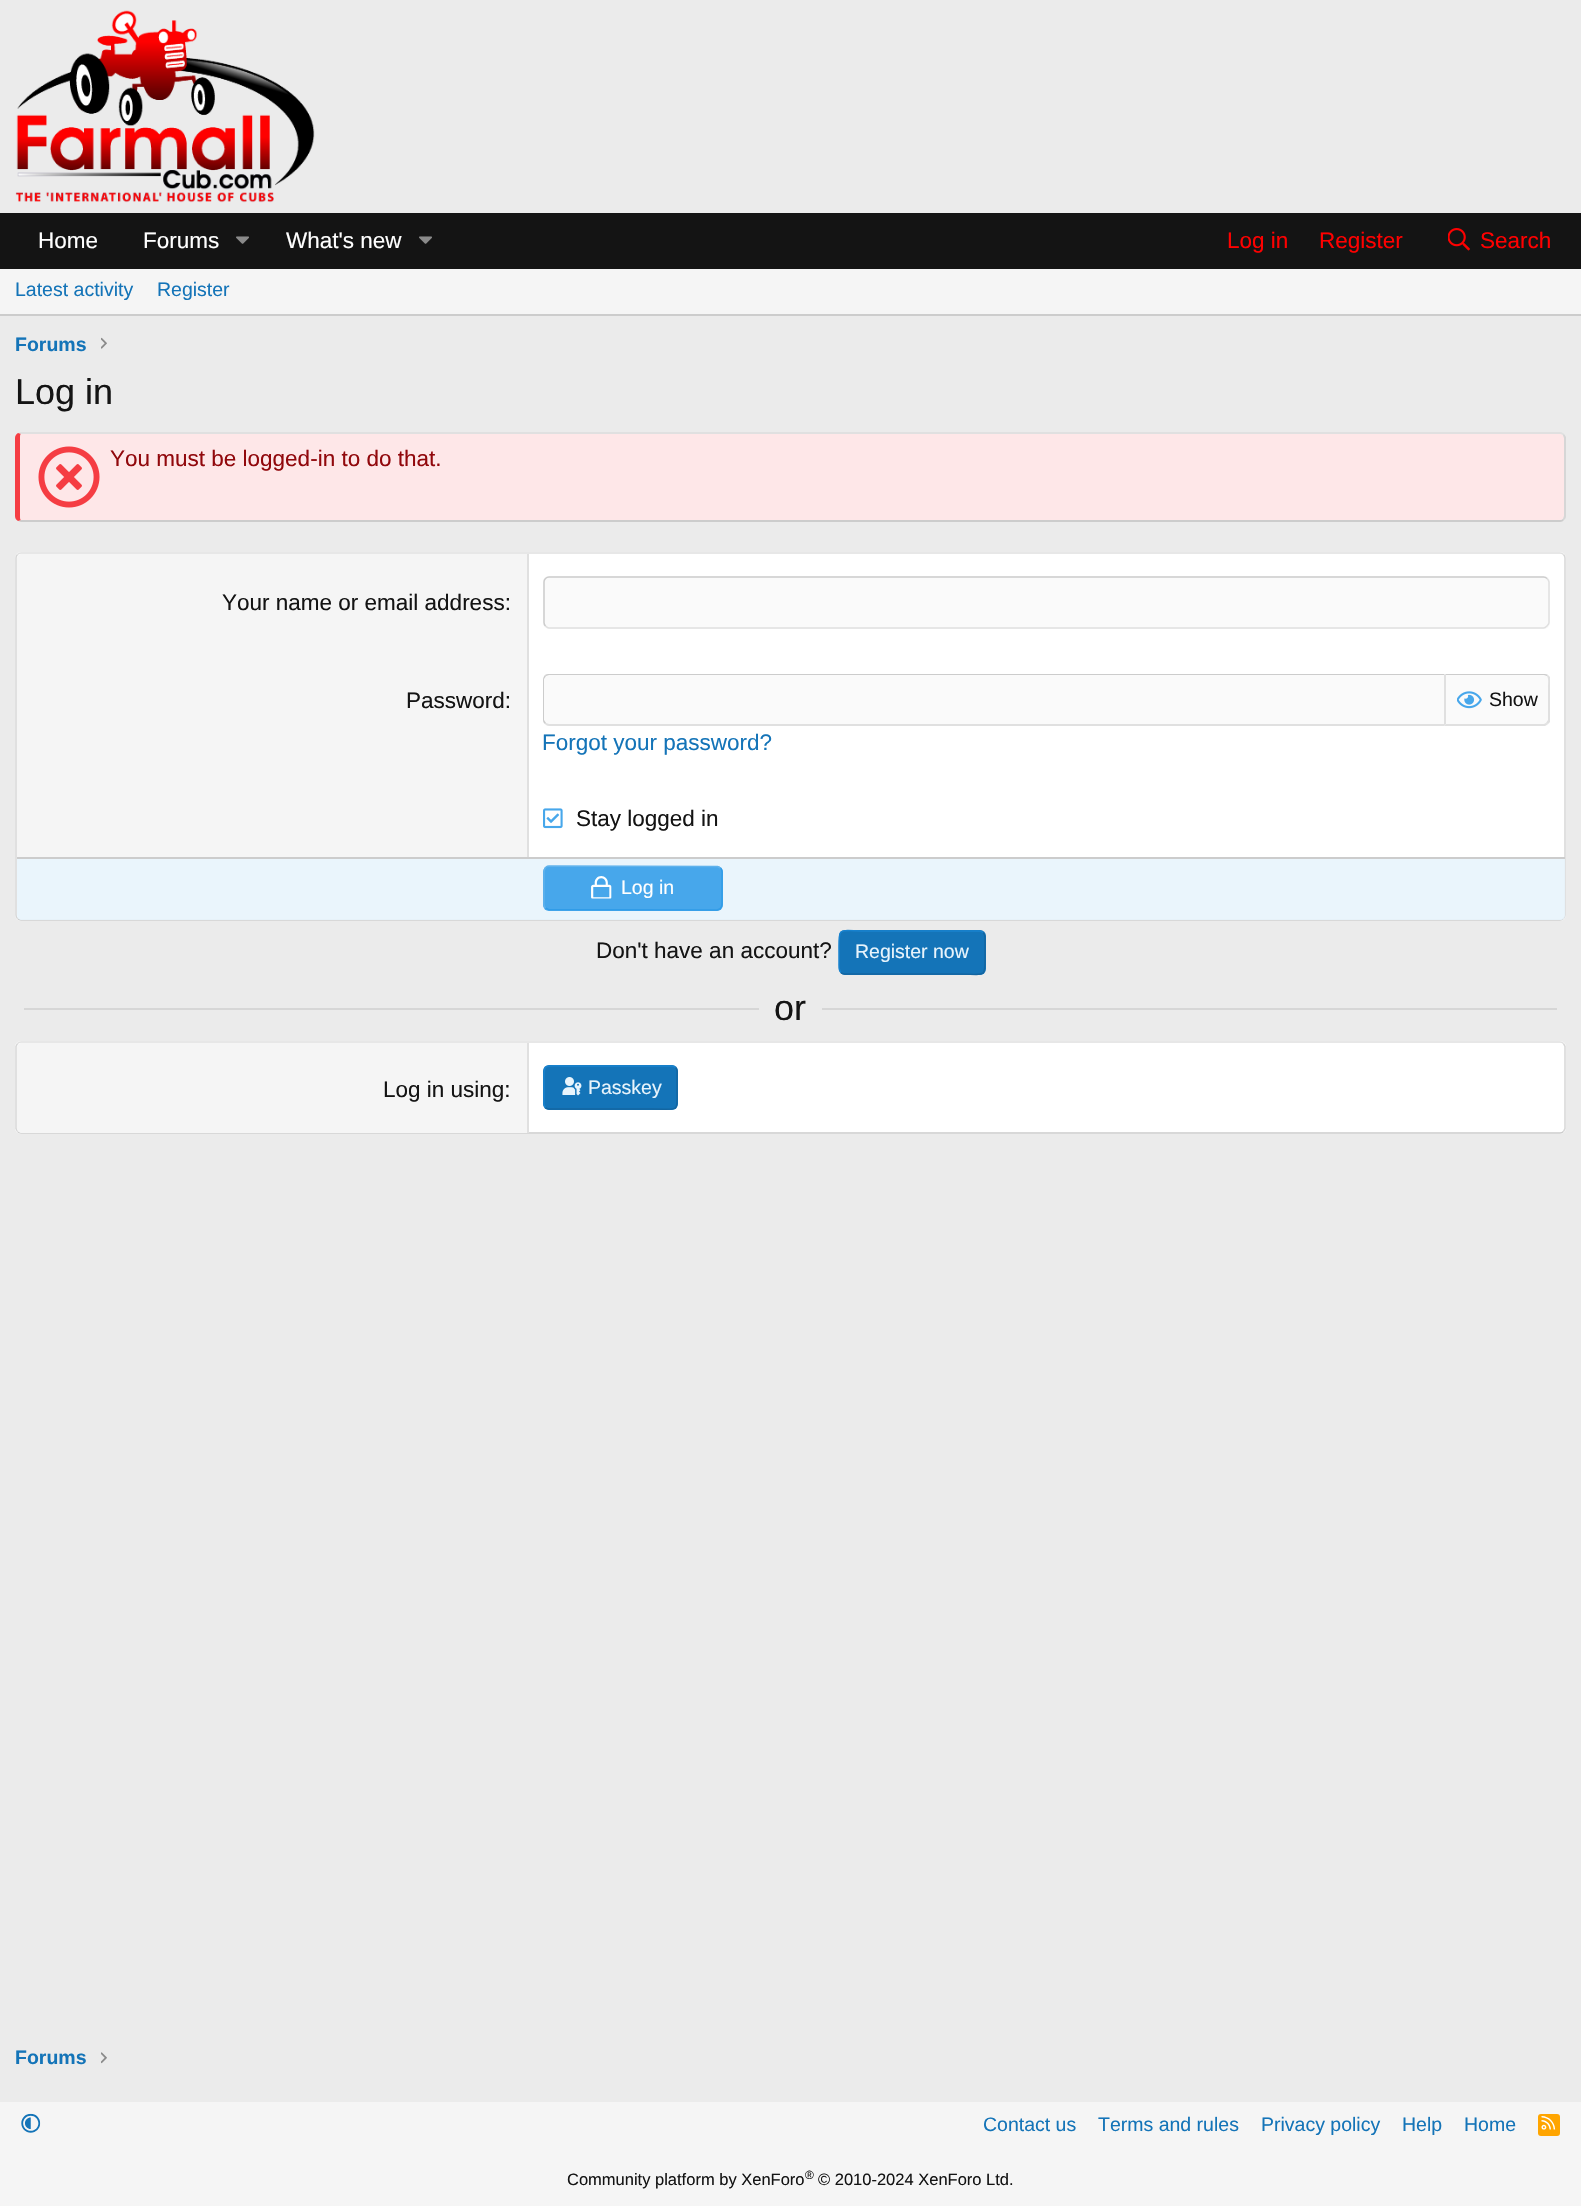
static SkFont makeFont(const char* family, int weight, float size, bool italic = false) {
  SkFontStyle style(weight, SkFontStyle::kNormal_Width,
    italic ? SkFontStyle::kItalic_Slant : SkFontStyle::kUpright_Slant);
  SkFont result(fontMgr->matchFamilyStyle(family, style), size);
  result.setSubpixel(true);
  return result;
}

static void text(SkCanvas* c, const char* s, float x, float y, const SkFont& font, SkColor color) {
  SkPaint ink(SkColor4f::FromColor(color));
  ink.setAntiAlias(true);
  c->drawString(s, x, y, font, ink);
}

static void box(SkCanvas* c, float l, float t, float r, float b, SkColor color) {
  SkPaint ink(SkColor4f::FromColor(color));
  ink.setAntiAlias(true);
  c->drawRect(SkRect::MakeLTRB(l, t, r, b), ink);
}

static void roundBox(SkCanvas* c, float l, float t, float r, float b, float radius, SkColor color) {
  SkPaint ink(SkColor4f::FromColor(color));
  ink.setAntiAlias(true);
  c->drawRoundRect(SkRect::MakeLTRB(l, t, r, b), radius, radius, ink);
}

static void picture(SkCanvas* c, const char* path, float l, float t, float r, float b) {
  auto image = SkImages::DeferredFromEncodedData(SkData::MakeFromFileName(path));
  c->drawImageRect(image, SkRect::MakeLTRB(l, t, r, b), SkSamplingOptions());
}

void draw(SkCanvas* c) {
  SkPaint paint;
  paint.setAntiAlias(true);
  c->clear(0xffebebeb);
  picture(c, "img_01.png", 15, 10, 315, 203);
  box(c, 0, 213, 1581, 269, 0xff141414);
  SkFont face1 = makeFont("Liberation Sans", 400, 22.5f);
  text(c, "Home", 38, 248, face1, 0xffffffff);
  text(c, "Forums", 143, 248, face1, 0xffffffff);
  picture(c, "img_02.png", 236, 236, 249, 244);
  text(c, "What's new", 286, 248, face1, 0xffffffff);
  picture(c, "img_02.png", 419, 236, 432, 244);
  text(c, "Log in", 1227, 248, face1, 0xffff0000);
  text(c, "Register", 1319, 248, face1, 0xffff0000);
  picture(c, "img_03.png", 1448, 228, 1470, 251);
  text(c, "Search", 1480, 248, face1, 0xffff0000);
  box(c, 0, 269, 1581, 314, 0xfff5f5f5);
  box(c, 0, 314, 1581, 316, 0xffcccccc);
  SkFont face2 = makeFont("Liberation Sans", 400, 19.5f);
  text(c, "Latest activity", 15, 296, face2, 0xff1474b8);
  text(c, "Register", 157, 296, face2, 0xff1474b8);
  SkFont face3 = makeFont("Liberation Sans", 700, 19.5f);
  text(c, "Forums", 15, 351, face3, 0xff1474b8);
  picture(c, "img_04.png", 101, 337, 107, 349);
  SkFont face4 = makeFont("Liberation Sans", 400, 36);
  text(c, "Log in", 15, 404, face4, 0xff141414);
  paint.setColor(0xfffee7e8);
  c->drawPath(SkPathBuilder().moveTo(21, 434).lineTo(1560, 434).cubicTo(1562, 434, 1564, 436, 1564, 438).lineTo(1564, 516).cubicTo(1564, 518, 1562, 520, 1560, 520).lineTo(21, 520).cubicTo(20, 520, 20, 518, 20, 516).lineTo(20, 438).cubicTo(20, 436, 20, 434, 21, 434).close().detach(), paint);
  paint.setColor(0xffe0e0e0);
  c->drawPath(SkPathBuilder().moveTo(21, 432).lineTo(18, 433).lineTo(21, 434).lineTo(1560, 434).cubicTo(1561, 434, 1562, 434, 1563, 435).lineTo(1564, 434).cubicTo(1563, 433, 1562, 432, 1560, 432).close().detach(), paint);
  paint.setColor(0xffd6d6d6);
  c->drawPath(SkPathBuilder().moveTo(1566, 516).lineTo(1566, 437).lineTo(1564, 434).lineTo(1563, 435).lineTo(1564, 438).lineTo(1564, 516).lineTo(1563, 519).lineTo(1564, 520).cubicTo(1565, 519, 1566, 518, 1566, 516).close().detach(), paint);
  paint.setColor(0xffcccccc);
  c->drawPath(SkPathBuilder().moveTo(21, 522).lineTo(1560, 522).cubicTo(1562, 522, 1563, 521, 1564, 520).lineTo(1563, 519).cubicTo(1562, 520, 1561, 520, 1560, 520).lineTo(21, 520).lineTo(18, 521).close().detach(), paint);
  paint.setColor(0xfff53d43);
  c->drawPath(SkPathBuilder().moveTo(21, 434).lineTo(18, 433).cubicTo(16, 434, 15, 436, 15, 438).lineTo(15, 516).cubicTo(15, 518, 16, 520, 18, 521).lineTo(21, 520).cubicTo(20, 520, 20, 518, 20, 516).lineTo(20, 438).cubicTo(20, 436, 20, 434, 21, 434).close().detach(), paint);
  picture(c, "img_05.png", 38, 446, 100, 508);
  text(c, "You must be logged-in to do that.", 110, 466, face1, 0xff91080c);
  roundBox(c, 15, 552, 1566, 921, 6, 0xffffffff);
  paint.setStyle(SkPaint::kStroke_Style);
  paint.setStrokeWidth(1.5f);
  paint.setColor(0xffe0e0e0);
  c->drawPath(SkPathBuilder().moveTo(17.5f, 554.5f).cubicTo(18.5f, 553.5f, 19.5f, 553, 21, 553).lineTo(1560, 553).cubicTo(1561.5f, 553, 1562.5f, 553.5f, 1563.5f, 554.5f).detach(), paint);
  paint.setColor(0xffd6d6d6);
  c->drawPath(SkPathBuilder().moveTo(1563.5f, 554.5f).cubicTo(1564.5f, 555.5f, 1565, 556.5f, 1565, 558).lineTo(1565, 915).cubicTo(1565, 916.5f, 1564.5f, 917.5f, 1563.5f, 918.5f).detach(), paint);
  paint.setColor(0xffcccccc);
  c->drawPath(SkPathBuilder().moveTo(1563.5f, 918.5f).cubicTo(1562.5f, 919.5f, 1561.5f, 920, 1560, 920).lineTo(21, 920).cubicTo(19.5f, 920, 18.5f, 919.5f, 17.5f, 918.5f).detach(), paint);
  paint.setColor(0xffd6d6d6);
  c->drawPath(SkPathBuilder().moveTo(17.5f, 918.5f).cubicTo(16.5f, 917.5f, 16, 916.5f, 16, 915).lineTo(16, 558).cubicTo(16, 556.5f, 16.5f, 555.5f, 17.5f, 554.5f).detach(), paint);
  paint.setStyle(SkPaint::kFill_Style);
  paint.setColor(0xfff5f5f5);
  c->drawPath(SkPathBuilder().moveTo(22, 554).lineTo(528, 554).lineTo(528, 651).lineTo(17, 651).lineTo(17, 559).cubicTo(17, 556, 19, 554, 22, 554).close().detach(), paint);
  box(c, 527, 554, 529, 857, 0xffe0e0e0);
  text(c, "Your name or email address:", 222, 610, face1, 0xff141414);
  roundBox(c, 543, 576, 1550, 629, 6, 0xfffafafa);
  paint.setStyle(SkPaint::kStroke_Style);
  paint.setColor(0xffe0e0e0);
  c->drawPath(SkPathBuilder().moveTo(1547, 578.5f).cubicTo(1548, 579.5f, 1549, 580.5f, 1549, 582).lineTo(1549, 622.5f).cubicTo(1549, 624, 1548, 625, 1547, 626).cubicTo(1546, 627, 1545, 628, 1543.5f, 628).lineTo(549, 628).cubicTo(547.5f, 628, 546.5f, 627, 545.5f, 626).detach(), paint);
  paint.setColor(0xffcccccc);
  c->drawPath(SkPathBuilder().moveTo(545.5f, 626).cubicTo(544.5f, 625, 544, 624, 544, 622.5f).lineTo(544, 582).cubicTo(544, 580.5f, 544.5f, 579.5f, 545.5f, 578.5f).cubicTo(546.5f, 577.5f, 547.5f, 577, 549, 577).lineTo(1543.5f, 577).cubicTo(1545, 577, 1546, 577.5f, 1547, 578.5f).detach(), paint);
  box(c, 17, 651, 527, 857, 0xfff5f5f5);
  text(c, "Password:", 406, 708, face1, 0xff141414);
  paint.setStyle(SkPaint::kFill_Style);
  paint.setColor(0xfffafafa);
  c->drawPath(SkPathBuilder().moveTo(549, 674).lineTo(1445, 674).lineTo(1445, 726).lineTo(549, 726).cubicTo(545.5f, 726, 543, 723.5f, 543, 720).lineTo(543, 680).cubicTo(543, 676.5f, 545.5f, 674, 549, 674).close().detach(), paint);
  paint.setColor(0xffcccccc);
  c->drawPath(SkPathBuilder().moveTo(549, 674).lineTo(1444, 674).lineTo(1444, 675).lineTo(549, 675).lineTo(546, 676).lineTo(545, 675).cubicTo(546, 674, 548, 674, 549, 674).close().detach(), paint);
  paint.setColor(0xffe0e0e0);
  c->drawPath(SkPathBuilder().moveTo(549, 726).lineTo(1444, 726).lineTo(1444, 724).lineTo(549, 724).lineTo(546, 723).lineTo(545, 724).cubicTo(546, 725, 548, 726, 549, 726).close().detach(), paint);
  paint.setColor(0xffcccccc);
  c->drawPath(SkPathBuilder().moveTo(546, 723).lineTo(545, 724).cubicTo(544, 723, 543, 722, 543, 720).lineTo(543, 680).cubicTo(543, 678, 544, 676, 545, 675).lineTo(546, 676).lineTo(544, 679).lineTo(544, 720).close().detach(), paint);
  paint.setColor(0xfffafafa);
  c->drawPath(SkPathBuilder().moveTo(1445, 674).lineTo(1544, 674).cubicTo(1547.5f, 674, 1550, 676.5f, 1550, 680).lineTo(1550, 720).cubicTo(1550, 723.5f, 1547.5f, 726, 1544, 726).lineTo(1445, 726).close().detach(), paint);
  paint.setColor(0xffcccccc);
  c->drawPath(SkPathBuilder().moveTo(1446, 675).lineTo(1544, 675).lineTo(1547, 676).lineTo(1548, 675).cubicTo(1547, 674, 1545, 674, 1544, 674).lineTo(1445, 674).close().detach(), paint);
  paint.setColor(0xffe0e0e0);
  c->drawPath(SkPathBuilder().moveTo(1548, 675).lineTo(1550, 677).lineTo(1550, 722).lineTo(1548, 724).lineTo(1546, 723).lineTo(1548, 720).lineTo(1548, 687).cubicTo(1548, 684, 1549, 679, 1547, 676).close().detach(), paint);
  c->drawPath(SkPathBuilder().moveTo(1444, 726).lineTo(1545, 726).lineTo(1548, 724).lineTo(1546, 723).lineTo(1544, 724).lineTo(1446, 724).close().detach(), paint);
  c->drawPath(SkPathBuilder().moveTo(1446, 675).lineTo(1444, 674).lineTo(1444, 726).lineTo(1446, 724).close().detach(), paint);
  picture(c, "img_06.png", 1457, 691, 1482, 709);
  text(c, "Show", 1489, 706, face2, 0xff141414);
  text(c, "Forgot your password?", 542, 750, face1, 0xff1474b8);
  picture(c, "img_07.png", 543, 808, 563, 829);
  text(c, "Stay logged in", 576, 826, face1, 0xff141414);
  paint.setColor(0xe6e8f4fc);
  c->drawPath(SkPathBuilder().moveTo(17, 857).lineTo(1565, 857).lineTo(1565, 915).cubicTo(1565, 918, 1563, 920, 1560, 920).lineTo(22, 920).cubicTo(19, 920, 17, 918, 17, 915).close().detach(), paint);
  box(c, 17, 857, 1565, 859, 0xffcccccc);
  roundBox(c, 543, 866, 723, 911, 6, 0xff47a7eb);
  paint.setStyle(SkPaint::kStroke_Style);
  paint.setColor(0xff309ce8);
  c->drawPath(SkPathBuilder().moveTo(720.5f, 868).cubicTo(723, 870, 722, 874, 722, 877).lineTo(722, 899).cubicTo(722, 903, 723, 909.5f, 717, 910).lineTo(548.5f, 909.5f).lineTo(545.5f, 908).detach(), paint);
  paint.setColor(0xff5eb2ed);
  c->drawPath(SkPathBuilder().moveTo(545.5f, 908).cubicTo(543, 906, 544, 902, 544, 899).lineTo(544, 877).cubicTo(544, 873, 543, 866.5f, 549, 866).lineTo(717.5f, 866.5f).lineTo(720.5f, 868).detach(), paint);
  picture(c, "img_08.png", 591, 876, 612, 899);
  text(c, "Log in", 621, 894, face2, 0xffffffff);
  text(c, "Don't have an account?", 596, 958, face1, 0xff141414);
  roundBox(c, 839, 930, 986, 975, 6, 0xff1474b8);
  paint.setColor(0xff1265a1);
  c->drawPath(SkPathBuilder().moveTo(983, 932.5f).cubicTo(985.5f, 934.5f, 985, 938.5f, 985, 941.5f).lineTo(985, 952.5f).cubicTo(985, 979.5f, 987.5f, 974, 957, 974).lineTo(844.5f, 974).cubicTo(843, 974, 842, 973.5f, 841, 972.5f).detach(), paint);
  paint.setColor(0xff1782cf);
  c->drawPath(SkPathBuilder().moveTo(841, 972.5f).cubicTo(838.5f, 970.5f, 839, 966.5f, 839, 963.5f).lineTo(839, 952.5f).cubicTo(839, 925.5f, 836.5f, 931, 867, 931).lineTo(979.5f, 931).cubicTo(981, 931, 982, 931.5f, 983, 932.5f).detach(), paint);
  text(c, "Register now", 855, 958, face2, 0xffe8f4fc);
  box(c, 24, 1008, 759, 1010, 0xffd6d6d6);
  text(c, "or", 774, 1020, face4, 0xff141414);
  box(c, 822, 1008, 1557, 1010, 0xffd6d6d6);
  roundBox(c, 15, 1041, 1566, 1134, 6, 0xffffffff);
  paint.setColor(0xffe0e0e0);
  c->drawPath(SkPathBuilder().moveTo(17.5f, 1043.5f).cubicTo(18.5f, 1042.5f, 19.5f, 1042, 21, 1042).lineTo(1560, 1042).cubicTo(1561.5f, 1042, 1562.5f, 1042.5f, 1563.5f, 1043.5f).detach(), paint);
  paint.setColor(0xffd6d6d6);
  c->drawPath(SkPathBuilder().moveTo(1563.5f, 1043.5f).lineTo(1565, 1046.5f).lineTo(1565, 1128.5f).lineTo(1563.5f, 1131.5f).detach(), paint);
  paint.setColor(0xffcccccc);
  c->drawPath(SkPathBuilder().moveTo(1563.5f, 1131.5f).cubicTo(1562.5f, 1132.5f, 1561.5f, 1133, 1560, 1133).lineTo(21, 1133).cubicTo(19.5f, 1133, 18.5f, 1132.5f, 17.5f, 1131.5f).detach(), paint);
  paint.setColor(0xffd6d6d6);
  c->drawPath(SkPathBuilder().moveTo(17.5f, 1131.5f).lineTo(16, 1128.5f).lineTo(16, 1046.5f).lineTo(17.5f, 1043.5f).detach(), paint);
  paint.setStyle(SkPaint::kFill_Style);
  paint.setColor(0xfff5f5f5);
  c->drawPath(SkPathBuilder().moveTo(22, 1043).lineTo(528, 1043).lineTo(528, 1133).lineTo(22, 1133).cubicTo(19, 1133, 17, 1131, 17, 1128).lineTo(17, 1048).cubicTo(17, 1045, 19, 1043, 22, 1043).close().detach(), paint);
  box(c, 527, 1043, 529, 1133, 0xffe0e0e0);
  text(c, "Log in using:", 383, 1097, face1, 0xff141414);
  roundBox(c, 543, 1065, 678, 1110, 6, 0xff1474b8);
  paint.setStyle(SkPaint::kStroke_Style);
  paint.setColor(0xff1265a1);
  c->drawPath(SkPathBuilder().moveTo(675.5f, 1067.5f).cubicTo(678, 1069.5f, 677, 1073.5f, 677, 1076.5f).lineTo(677, 1087.5f).cubicTo(677, 1114, 680.5f, 1109, 651.5f, 1109).lineTo(549, 1109).cubicTo(547.5f, 1109, 546.5f, 1108.5f, 545.5f, 1107.5f).detach(), paint);
  paint.setColor(0xff1782cf);
  c->drawPath(SkPathBuilder().moveTo(545.5f, 1107.5f).cubicTo(543, 1105.5f, 544, 1101.5f, 544, 1098.5f).lineTo(544, 1087.5f).cubicTo(544, 1061, 540.5f, 1066, 569.5f, 1066).lineTo(672, 1066).cubicTo(673.5f, 1066, 674.5f, 1066.5f, 675.5f, 1067.5f).detach(), paint);
  picture(c, "img_09.png", 562, 1077, 582, 1096);
  text(c, "Passkey", 588, 1094, face2, 0xffe8f4fc);
  text(c, "Forums", 15, 2064, face3, 0xff1474b8);
  picture(c, "img_10.png", 101, 2052, 107, 2064);
  box(c, 0, 2102, 1581, 2206, 0xfff5f5f5);
  picture(c, "img_11.png", 21, 2113, 41, 2133);
  text(c, "Contact us", 983, 2131, face2, 0xff1474b8);
  text(c, "Terms and rules", 1098, 2131, face2, 0xff1474b8);
  text(c, "Privacy policy", 1261, 2131, face2, 0xff1474b8);
  text(c, "Help", 1402, 2131, face2, 0xff1474b8);
  text(c, "Home", 1464, 2131, face2, 0xff1474b8);
  roundBox(c, 1538, 2114, 1560, 2136, 3, 0xffffa500);
  picture(c, "img_12.png", 1541, 2116, 1556, 2130);
  SkFont face5 = makeFont("Liberation Sans", 400, 16.5f);
  text(c, "Community platform by XenForo", 567, 2185, face5, 0xff141414);
  SkFont face6 = makeFont("Liberation Sans", 400, 12);
  text(c, "®", 805, 2179, face6, 0xff141414);
  text(c, "© 2010-2024 XenForo Ltd.", 818, 2185, face5, 0xff141414);
}
